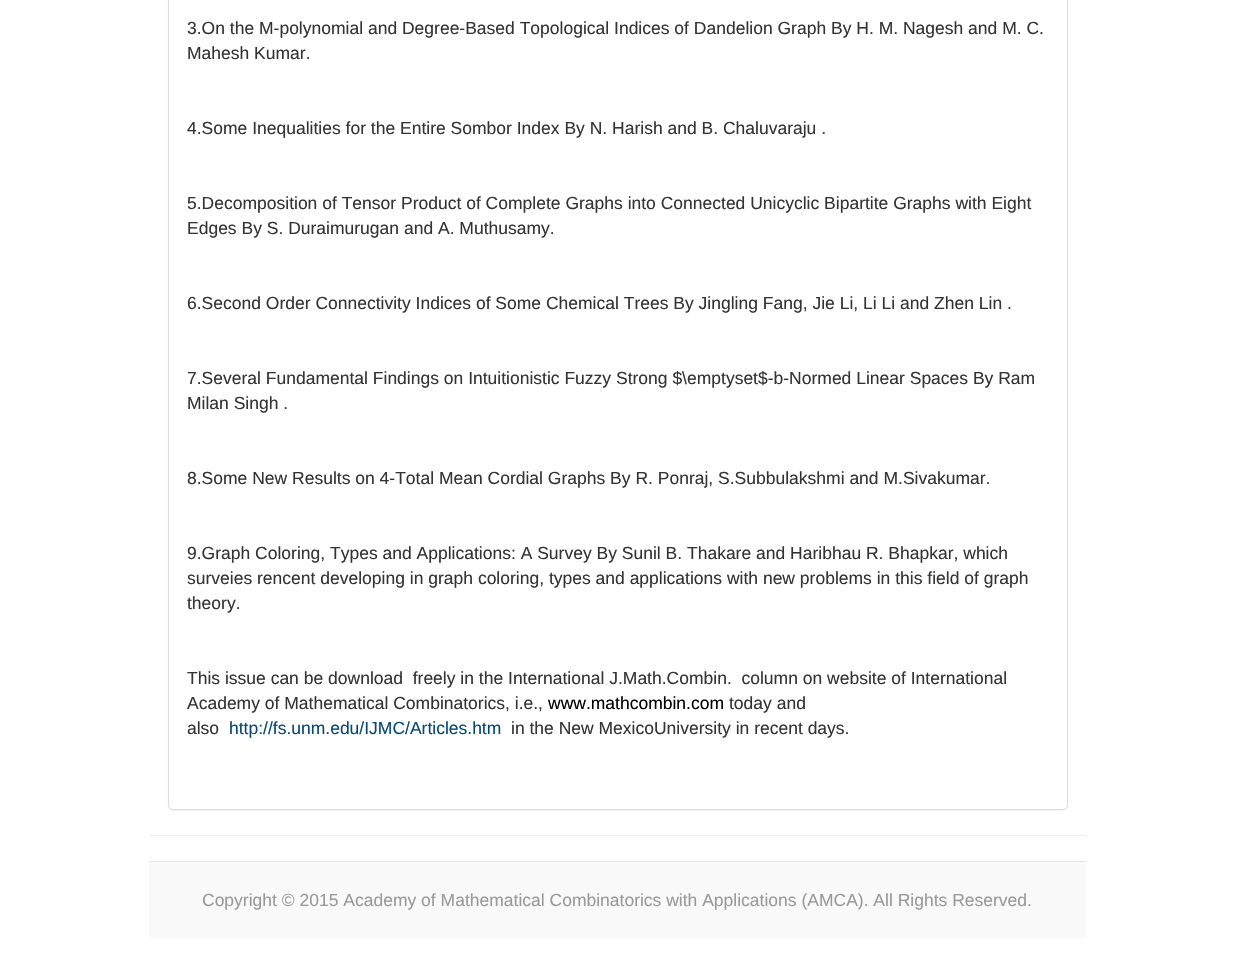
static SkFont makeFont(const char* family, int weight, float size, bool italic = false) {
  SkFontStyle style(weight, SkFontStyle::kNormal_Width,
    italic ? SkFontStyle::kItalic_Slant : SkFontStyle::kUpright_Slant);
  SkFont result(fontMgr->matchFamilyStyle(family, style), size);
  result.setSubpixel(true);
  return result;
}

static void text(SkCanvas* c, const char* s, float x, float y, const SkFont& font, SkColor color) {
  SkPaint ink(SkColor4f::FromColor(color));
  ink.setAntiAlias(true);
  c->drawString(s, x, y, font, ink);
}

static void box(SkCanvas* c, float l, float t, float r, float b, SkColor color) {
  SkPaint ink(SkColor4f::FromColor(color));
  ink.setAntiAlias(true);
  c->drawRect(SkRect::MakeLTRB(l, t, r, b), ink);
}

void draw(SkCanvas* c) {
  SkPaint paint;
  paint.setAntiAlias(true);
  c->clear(0xffffffff);
  paint.setColor(0x0d000000);
  paint.setMaskFilter(SkMaskFilter::MakeBlur(kNormal_SkBlurStyle, 0.5f));
  c->drawRoundRect(SkRect::MakeLTRB(168, -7, 1068, 811), 5, 5, paint);
  paint.setMaskFilter(nullptr);
  paint.setColor(0xffffffff);
  c->drawRoundRect(SkRect::MakeLTRB(168.5f, -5.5f, 1067.5f, 809.5f), 4.5f, 4.5f, paint);
  paint.setStyle(SkPaint::kStroke_Style);
  paint.setStrokeWidth(1);
  paint.setColor(0xffdddddd);
  c->drawRoundRect(SkRect::MakeLTRB(168.5f, -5.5f, 1067.5f, 809.5f), 4.5f, 4.5f, paint);
  SkFont face1 = makeFont("Liberation Sans", 400, 17.5f);
  text(c, "3.On the M-polynomial and Degree-Based Topological Indices of Dandelion Graph By H. M. Nagesh and M. C.", 187, 34, face1, 0xff333333);
  text(c, "Mahesh Kumar.", 187, 59, face1, 0xff333333);
  text(c, "4.Some Inequalities for the Entire Sombor Index By N. Harish and B. Chaluvaraju .", 187, 134, face1, 0xff333333);
  text(c, "5.Decomposition of Tensor Product of Complete Graphs into Connected Unicyclic Bipartite Graphs with Eight", 187, 209, face1, 0xff333333);
  text(c, "Edges By S. Duraimurugan and A. Muthusamy.", 187, 234, face1, 0xff333333);
  text(c, "6.Second Order Connectivity Indices of Some Chemical Trees By Jingling Fang, Jie Li, Li Li and Zhen Lin .", 187, 309, face1, 0xff333333);
  text(c, "7.Several Fundamental Findings on Intuitionistic Fuzzy Strong $\\emptyset$-b-Normed Linear Spaces By Ram", 187, 384, face1, 0xff333333);
  text(c, "Milan Singh .", 187, 409, face1, 0xff333333);
  text(c, "8.Some New Results on 4-Total Mean Cordial Graphs By R. Ponraj, S.Subbulakshmi and M.Sivakumar.", 187, 484, face1, 0xff333333);
  text(c, "9.Graph Coloring, Types and Applications: A Survey By Sunil B. Thakare and Haribhau R. Bhapkar, which", 187, 559, face1, 0xff333333);
  text(c, "surveies rencent developing in graph coloring, types and applications with new problems in this field of graph", 187, 584, face1, 0xff333333);
  text(c, "theory.", 187, 609, face1, 0xff333333);
  text(c, "This issue can be download  freely in the International J.Math.Combin.  column on website of International", 187, 684, face1, 0xff333333);
  text(c, "Academy of Mathematical Combinatorics, i.e.,", 187, 709, face1, 0xff333333);
  text(c, "www.mathcombin.com", 548, 709, face1, 0xff000000);
  text(c, "today and", 729, 709, face1, 0xff333333);
  text(c, "also", 187, 734, face1, 0xff333333);
  text(c, "http://fs.unm.edu/IJMC/Articles.htm", 229, 734, face1, 0xff064977);
  text(c, "in the New MexicoUniversity in recent days.", 511, 734, face1, 0xff333333);
  box(c, 149, 835, 1086, 836, 0xffeeeeee);
  box(c, 149, 862, 1086, 938, 0xfff9f9f9);
  box(c, 149, 861, 1086, 862, 0xffe5e5e5);
  text(c, "Copyright © 2015 Academy of Mathematical Combinatorics with Applications (AMCA). All Rights Reserved.", 202, 906, face1, 0xff999999);
}
